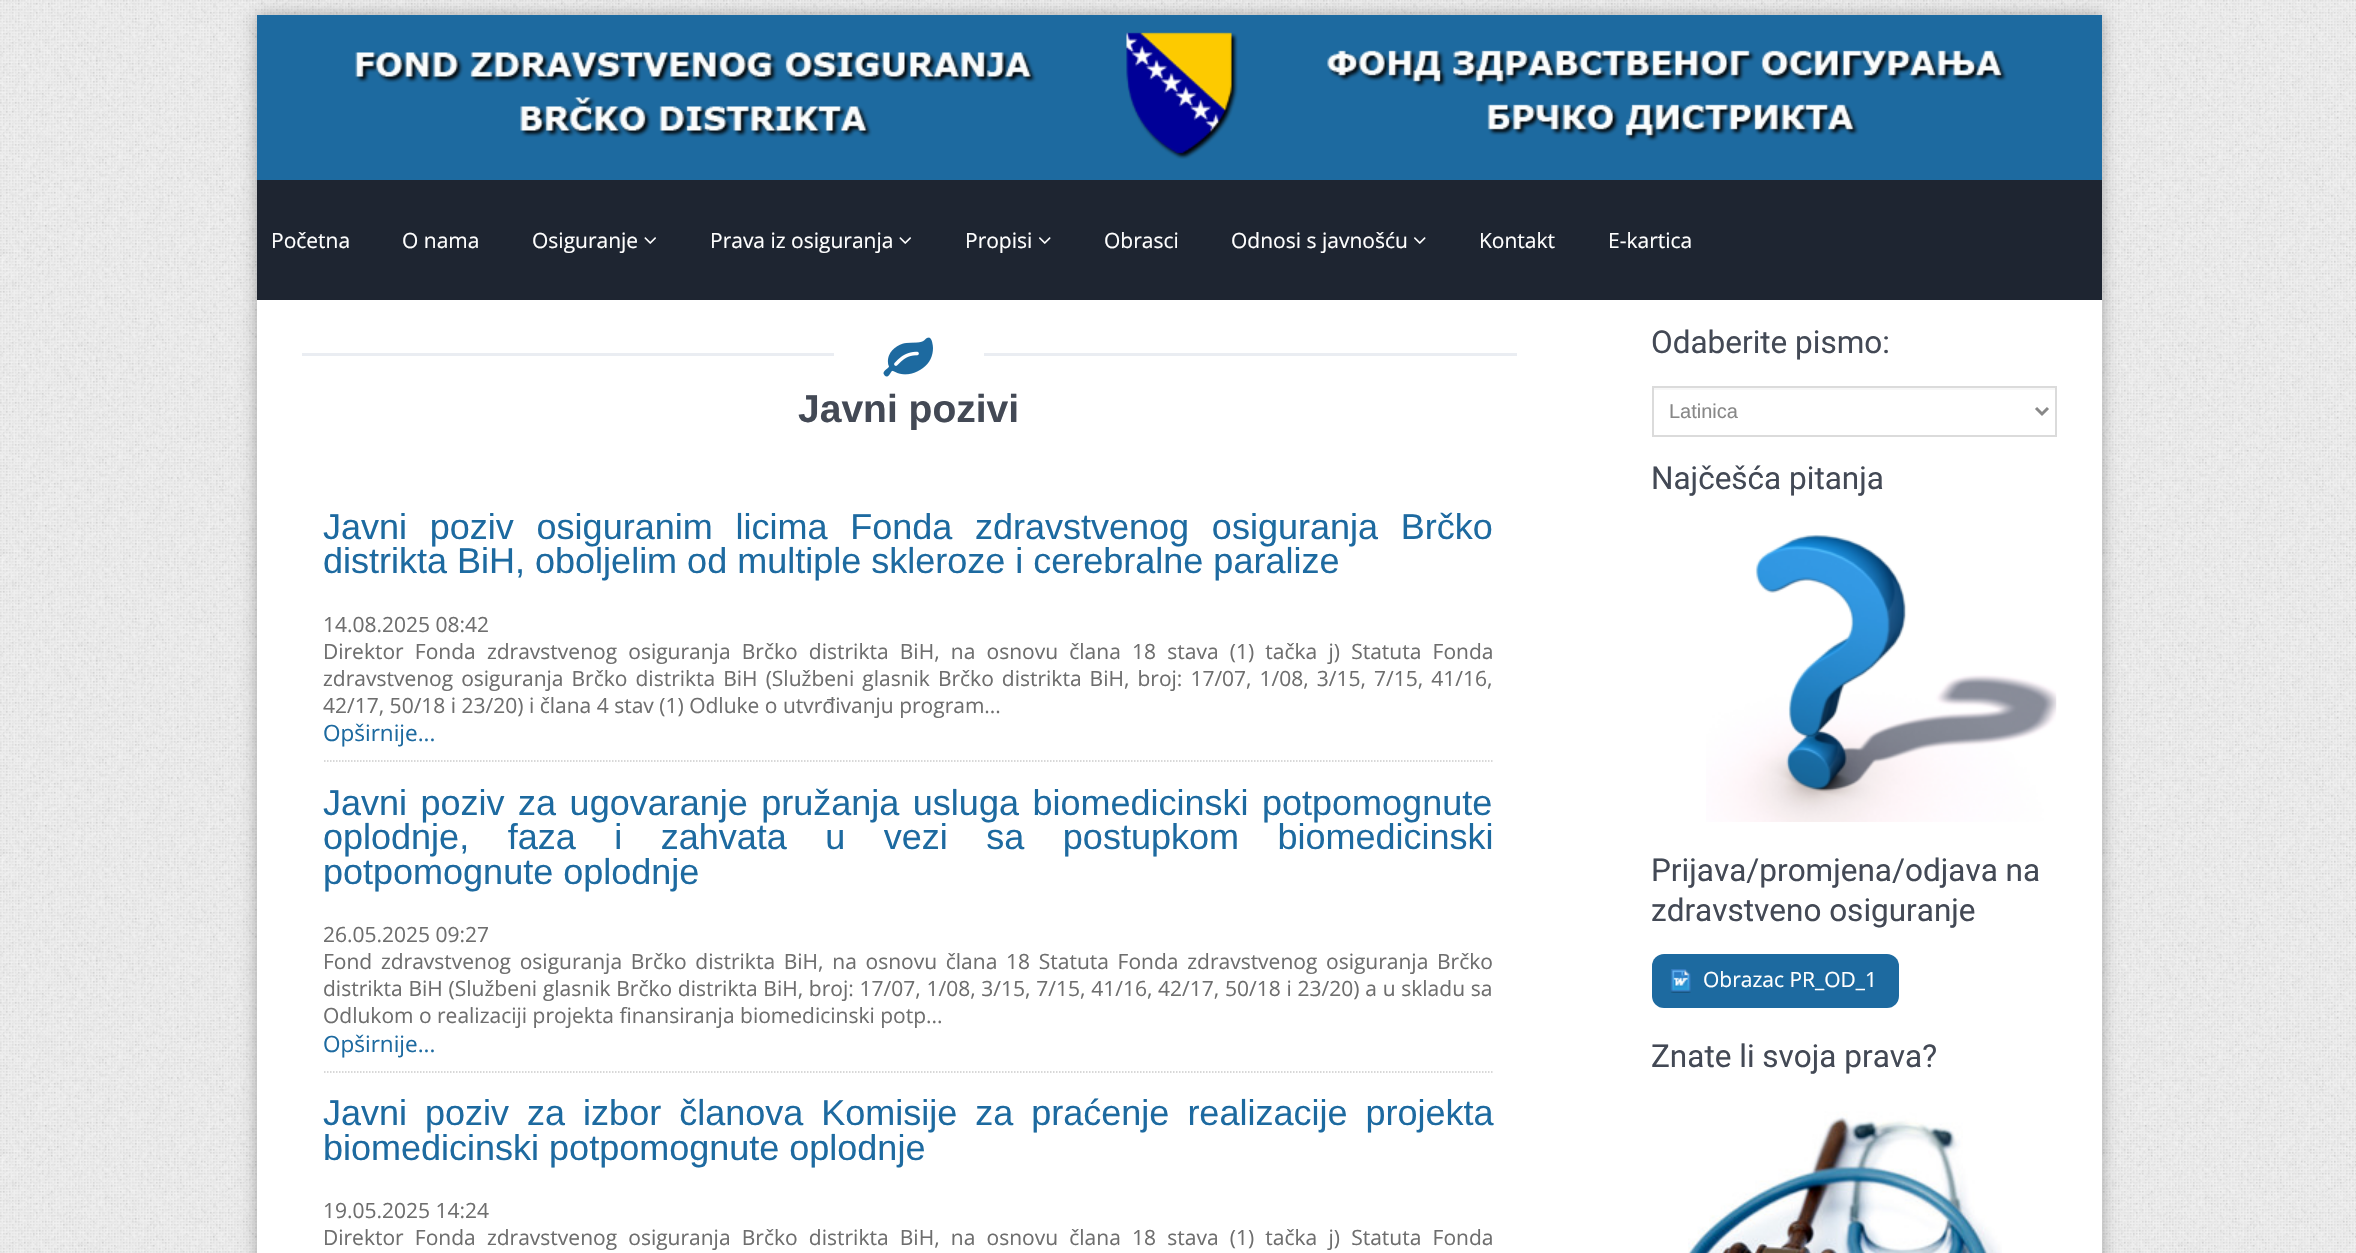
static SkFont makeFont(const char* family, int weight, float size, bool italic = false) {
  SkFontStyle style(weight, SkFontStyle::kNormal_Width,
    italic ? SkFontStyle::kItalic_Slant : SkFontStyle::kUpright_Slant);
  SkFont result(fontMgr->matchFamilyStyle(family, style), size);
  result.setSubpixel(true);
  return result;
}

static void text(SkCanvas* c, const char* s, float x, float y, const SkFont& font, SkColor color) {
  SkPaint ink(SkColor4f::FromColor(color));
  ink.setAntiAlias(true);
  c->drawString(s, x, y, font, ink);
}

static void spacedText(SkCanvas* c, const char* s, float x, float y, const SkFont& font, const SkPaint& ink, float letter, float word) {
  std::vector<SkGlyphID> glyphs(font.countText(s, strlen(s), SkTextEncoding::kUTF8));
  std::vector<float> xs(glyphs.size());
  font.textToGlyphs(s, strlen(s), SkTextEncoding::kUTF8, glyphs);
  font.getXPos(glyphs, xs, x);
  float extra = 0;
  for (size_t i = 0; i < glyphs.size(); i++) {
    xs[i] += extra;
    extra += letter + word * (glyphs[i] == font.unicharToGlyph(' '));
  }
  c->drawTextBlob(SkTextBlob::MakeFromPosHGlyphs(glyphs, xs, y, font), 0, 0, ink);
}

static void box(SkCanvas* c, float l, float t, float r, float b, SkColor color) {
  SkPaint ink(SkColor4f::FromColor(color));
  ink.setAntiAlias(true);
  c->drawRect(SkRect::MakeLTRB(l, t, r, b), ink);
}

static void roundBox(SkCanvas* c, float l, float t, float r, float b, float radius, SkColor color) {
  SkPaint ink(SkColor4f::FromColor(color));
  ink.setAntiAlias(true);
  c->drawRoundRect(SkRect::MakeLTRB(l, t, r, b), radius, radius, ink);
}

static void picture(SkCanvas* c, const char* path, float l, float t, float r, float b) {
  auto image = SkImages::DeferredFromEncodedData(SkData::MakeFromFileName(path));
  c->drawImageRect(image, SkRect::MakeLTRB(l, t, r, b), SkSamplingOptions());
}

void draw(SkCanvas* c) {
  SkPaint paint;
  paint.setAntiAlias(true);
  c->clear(0xffffffff);
  picture(c, "img_01.png", 0, 0, 2356, 1253);
  paint.setColor(0x4d000000);
  paint.setMaskFilter(SkMaskFilter::MakeBlur(kNormal_SkBlurStyle, 7.5f));
  c->drawRect(SkRect::MakeLTRB(257, 15, 2102, 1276), paint);
  paint.setMaskFilter(nullptr);
  box(c, 257, 300, 2102, 1253, 0xffffffff);
  box(c, 257, 15, 2102, 180, 0xff1d6aa0);
  picture(c, "img_02.png", 355, 32, 2007, 159);
  box(c, 257, 180, 2102, 300, 0xff1e2531);
  SkFont face1 = makeFont("Open Sans", 400, 21);
  text(c, "Početna", 271, 248, face1, 0xffffffff);
  text(c, "O nama", 402, 248, face1, 0xffffffff);
  text(c, "Osiguranje", 532, 248, face1, 0xffffffff);
  picture(c, "img_03.png", 644, 237, 656, 244);
  text(c, "Prava iz osiguranja", 710, 248, face1, 0xffffffff);
  picture(c, "img_03.png", 899, 237, 911, 244);
  text(c, "Propisi", 965, 248, face1, 0xffffffff);
  picture(c, "img_04.png", 1039, 237, 1051, 244);
  text(c, "Obrasci", 1104, 248, face1, 0xffffffff);
  text(c, "Odnosi s javnošću", 1231, 248, face1, 0xffffffff);
  picture(c, "img_04.png", 1414, 237, 1426, 244);
  text(c, "Kontakt", 1479, 248, face1, 0xffffffff);
  text(c, "E-kartica", 1608, 248, face1, 0xffffffff);
  box(c, 302, 353, 1517, 356, 0xffeaedf2);
  box(c, 834, 353, 984, 356, 0xffffffff);
  picture(c, "img_05.png", 883, 337, 933, 377);
  SkFont face2 = makeFont("Liberation Sans", 700, 39);
  text(c, "Javni pozivi", 798, 422, face2, 0xff434955);
  SkFont face3 = makeFont("Liberation Sans", 400, 36);
  paint.setColor(0xff1d6aa0);
  spacedText(c, "Javni poziv osiguranim licima Fonda zdravstvenog osiguranja Brčko", 323, 539, face3, paint, 0, 12.75f);
  text(c, "distrikta BiH, oboljelim od multiple skleroze i cerebralne paralize", 323, 573, face3, 0xff1d6aa0);
  text(c, "14.08.2025 08:42", 323, 632, face1, 0xff6e6e6e);
  paint.setColor(0xff6e6e6e);
  spacedText(c, "Direktor Fonda zdravstvenog osiguranja Brčko distrikta BiH, na osnovu člana 18 stava (1) tačka j) Statuta Fonda", 323, 659, face1, paint, 0, 5.75f);
  spacedText(c, "zdravstvenog osiguranja Brčko distrikta BiH (Službeni glasnik Brčko distrikta BiH, broj: 17/07, 1/08, 3/15, 7/15, 41/16,", 323, 686, face1, paint, 0, 2.6f);
  text(c, "42/17, 50/18 i 23/20) i člana 4 stav (1) Odluke o utvrđivanju program...", 323, 713, face1, 0xff6e6e6e);
  SkFont face4 = makeFont("Open Sans", 400, 22.5f);
  text(c, "Opširnije...", 323, 741, face4, 0xff1d6aa0);
  paint.setStyle(SkPaint::kStroke_Style);
  paint.setStrokeWidth(1.5f);
  paint.setColor(0xffcccccc);
  paint.setPathEffect(SkDashPathEffect::Make({{1.5f, 1.5f}}, 0));
  c->drawPath(SkPathBuilder().moveTo(324, 761).lineTo(1494, 761).detach(), paint);
  paint.setPathEffect(nullptr);
  paint.setStyle(SkPaint::kFill_Style);
  paint.setColor(0xff1d6aa0);
  spacedText(c, "Javni poziv za ugovaranje pružanja usluga biomedicinski potpomognute", 323, 815, face3, paint, 0, 3.5f);
  spacedText(c, "oplodnje, faza i zahvata u vezi sa postupkom biomedicinski", 323, 849, face3, paint, 0, 28.5f);
  text(c, "potpomognute oplodnje", 323, 884, face3, 0xff1d6aa0);
  text(c, "26.05.2025 09:27", 323, 942, face1, 0xff6e6e6e);
  paint.setColor(0xff6e6e6e);
  spacedText(c, "Fond zdravstvenog osiguranja Brčko distrikta BiH, na osnovu člana 18 Statuta Fonda zdravstvenog osiguranja Brčko", 323, 969, face1, paint, 0, 3.25f);
  spacedText(c, "distrikta BiH (Službeni glasnik Brčko distrikta BiH, broj: 17/07, 1/08, 3/15, 7/15, 41/16, 42/17, 50/18 i 23/20) a u skladu sa", 323, 996, face1, paint, 0, 0.3f);
  text(c, "Odlukom o realizaciji projekta finansiranja biomedicinski potp...", 323, 1023, face1, 0xff6e6e6e);
  text(c, "Opširnije...", 323, 1052, face4, 0xff1d6aa0);
  paint.setStyle(SkPaint::kStroke_Style);
  paint.setColor(0xffcccccc);
  paint.setPathEffect(SkDashPathEffect::Make({{1.5f, 1.5f}}, 0));
  c->drawPath(SkPathBuilder().moveTo(324, 1072).lineTo(1494, 1072).detach(), paint);
  paint.setPathEffect(nullptr);
  paint.setStyle(SkPaint::kFill_Style);
  paint.setColor(0xff1d6aa0);
  spacedText(c, "Javni poziv za izbor članova Komisije za praćenje realizacije projekta", 323, 1125, face3, paint, 0, 8);
  text(c, "biomedicinski potpomognute oplodnje", 323, 1160, face3, 0xff1d6aa0);
  text(c, "19.05.2025 14:24", 323, 1218, face1, 0xff6e6e6e);
  paint.setColor(0xff6e6e6e);
  spacedText(c, "Direktor Fonda zdravstvenog osiguranja Brčko distrikta BiH, na osnovu člana 18 stava (1) tačka j) Statuta Fonda", 323, 1245, face1, paint, 0, 5.75f);
  SkFont face5 = makeFont("Roboto", 400, 31.5f);
  text(c, "Odaberite pismo:", 1651, 353, face5, 0xff434955);
  box(c, 1653, 388, 2055, 390, 0xfff7f7f7);
  paint.setStyle(SkPaint::kStroke_Style);
  paint.setStrokeWidth(2);
  paint.setColor(0xffdbdbdb);
  c->drawRect(SkRect::MakeLTRB(1653, 387, 2056, 436), paint);
  paint.setStrokeWidth(3);
  paint.setColor(0xff888888);
  c->drawPath(SkPathBuilder().moveTo(2036, 408).lineTo(2042, 414).lineTo(2048, 408).detach(), paint);
  SkFont face6 = makeFont("Liberation Sans", 400, 20);
  text(c, "Latinica", 1669, 418, face6, 0xff888888);
  text(c, "Najčešća pitanja", 1651, 489, face5, 0xff434955);
  picture(c, "img_06.png", 1706, 534, 2057, 822);
  text(c, "Prijava/promjena/odjava na", 1651, 881, face5, 0xff434955);
  text(c, "zdravstveno osiguranje", 1651, 921, face5, 0xff434955);
  roundBox(c, 1652, 954, 1899, 1008, 12, 0xff1d6aa0);
  picture(c, "img_07.png", 1670, 969, 1691, 993);
  text(c, "Obrazac PR_OD_1", 1703, 987, face1, 0xffffffff);
  text(c, "Znate li svoja prava?", 1651, 1067, face5, 0xff434955);
  picture(c, "img_08.png", 1688, 1111, 2002, 1253);
}
